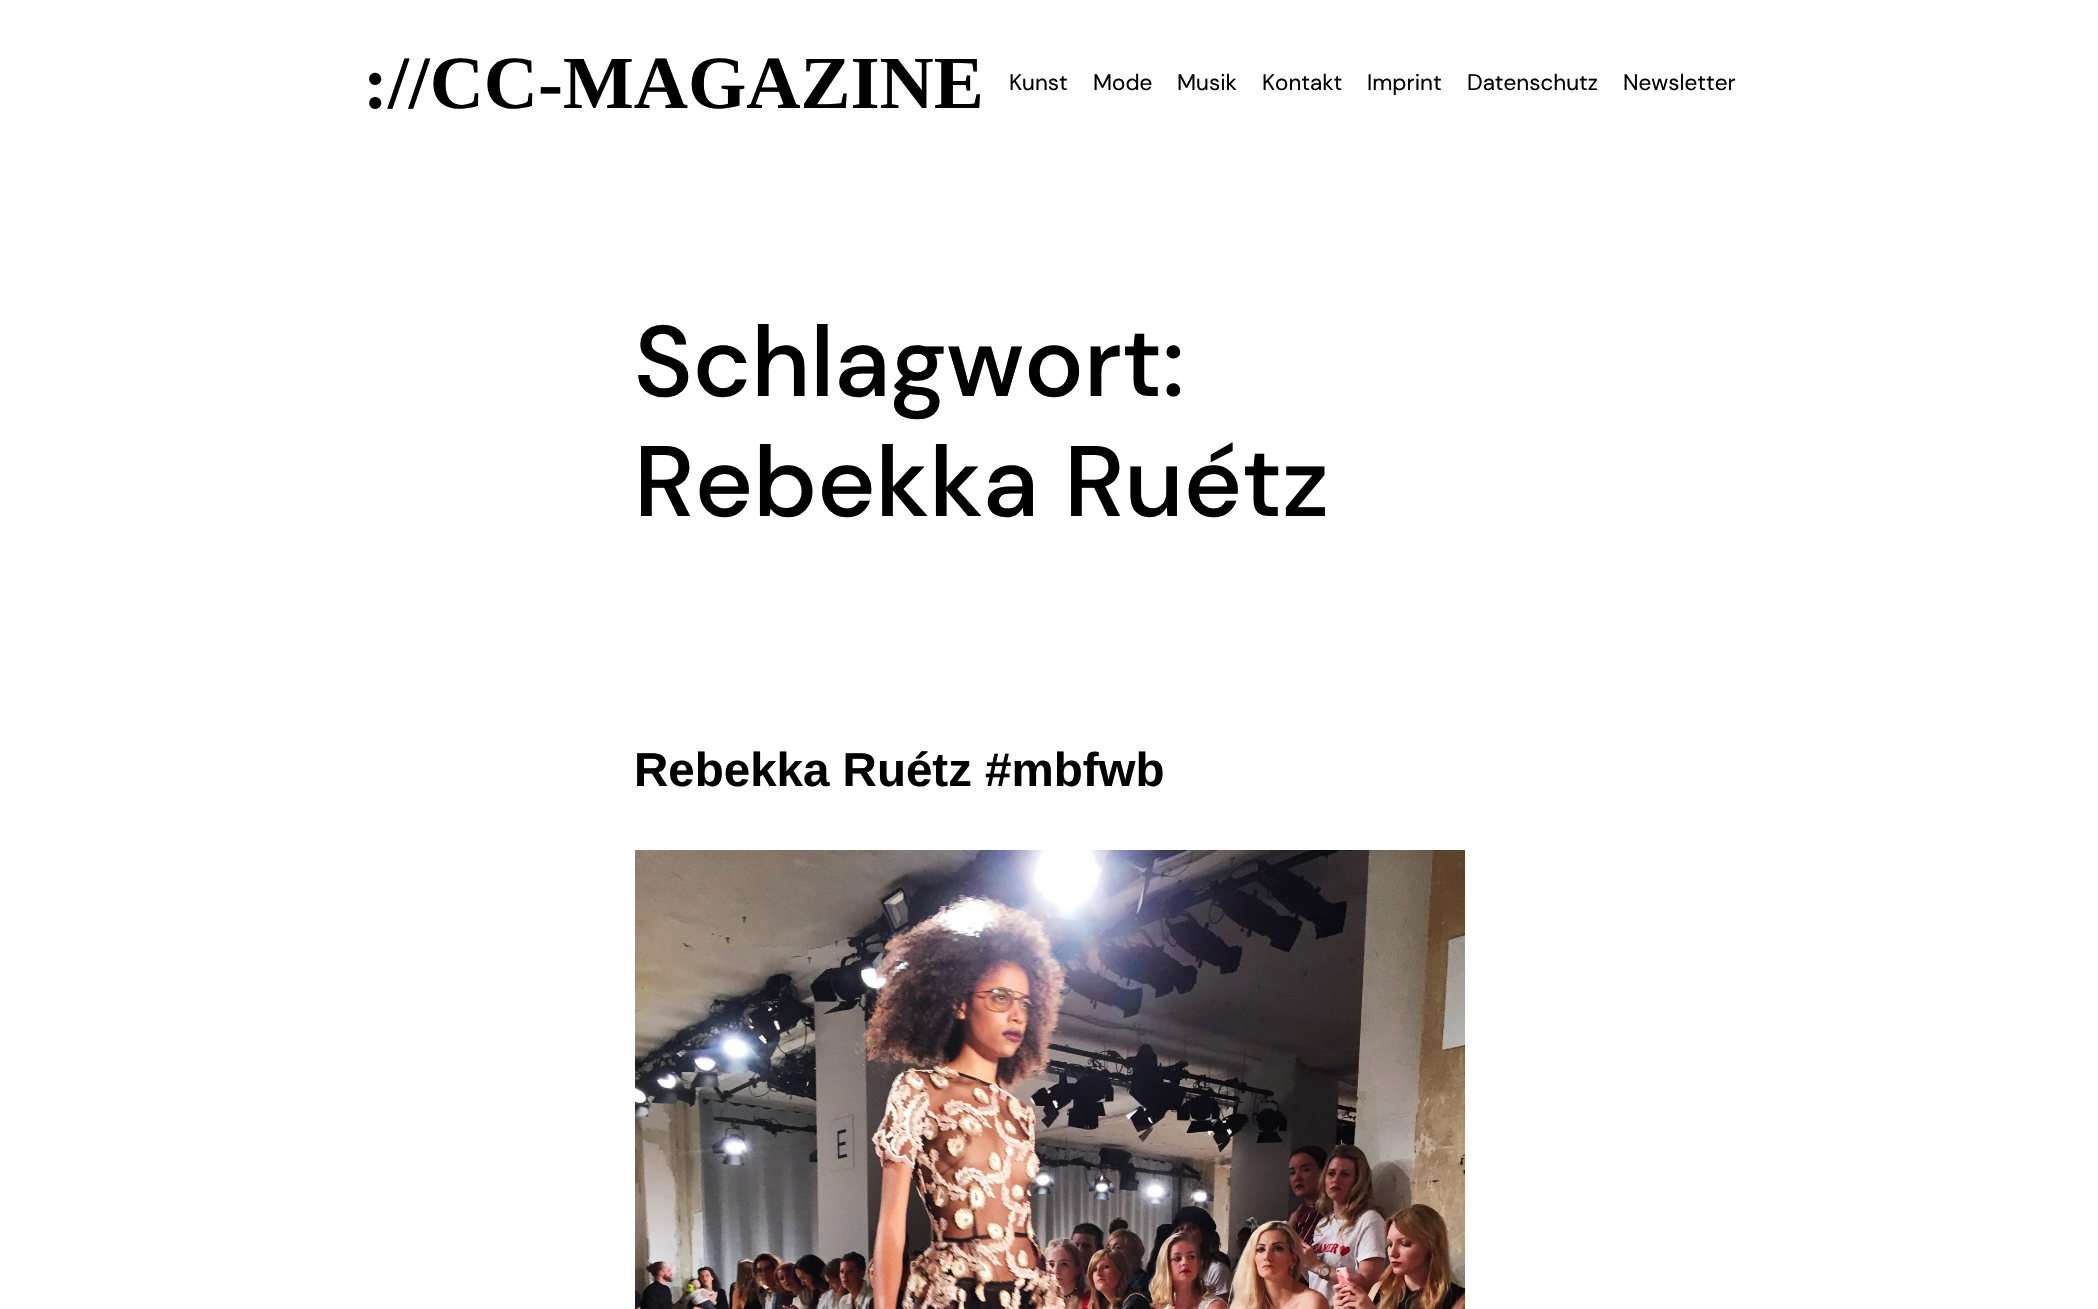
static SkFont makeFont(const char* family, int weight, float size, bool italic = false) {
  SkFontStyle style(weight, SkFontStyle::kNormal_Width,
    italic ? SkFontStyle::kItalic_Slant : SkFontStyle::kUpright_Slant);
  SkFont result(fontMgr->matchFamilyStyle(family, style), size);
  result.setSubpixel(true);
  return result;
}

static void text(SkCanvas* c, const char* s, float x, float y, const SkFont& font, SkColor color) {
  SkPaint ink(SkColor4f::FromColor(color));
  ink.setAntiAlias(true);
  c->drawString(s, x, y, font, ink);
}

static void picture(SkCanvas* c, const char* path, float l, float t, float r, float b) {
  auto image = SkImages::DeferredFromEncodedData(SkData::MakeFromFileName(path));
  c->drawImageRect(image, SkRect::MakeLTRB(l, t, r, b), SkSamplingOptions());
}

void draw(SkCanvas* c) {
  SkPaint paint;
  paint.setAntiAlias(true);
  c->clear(0xffffffff);
  SkFont face1 = makeFont("Liberation Serif", 700, 75);
  text(c, "://CC-MAGAZINE", 363, 108, face1, 0xff000000);
  SkFont face2 = makeFont("DM Sans", 400, 22.5f);
  text(c, "Kunst", 1009, 90, face2, 0xff000000);
  text(c, "Mode", 1093, 90, face2, 0xff000000);
  text(c, "Musik", 1177, 90, face2, 0xff000000);
  text(c, "Kontakt", 1262, 90, face2, 0xff000000);
  text(c, "Imprint", 1367, 90, face2, 0xff000000);
  text(c, "Datenschutz", 1467, 90, face2, 0xff000000);
  text(c, "Newsletter", 1623, 90, face2, 0xff000000);
  SkFont face3 = makeFont("DM Sans", 500, 100);
  text(c, "Schlagwort:", 634, 396, face3, 0xff000000);
  text(c, "Rebekka Ruétz", 634, 516, face3, 0xff000000);
  SkFont face4 = makeFont("Liberation Sans", 700, 47.5f);
  text(c, "Rebekka Ruétz #mbfwb", 634, 786, face4, 0xff000000);
  picture(c, "img_01.png", 635, 850, 1465, 1309);
}
